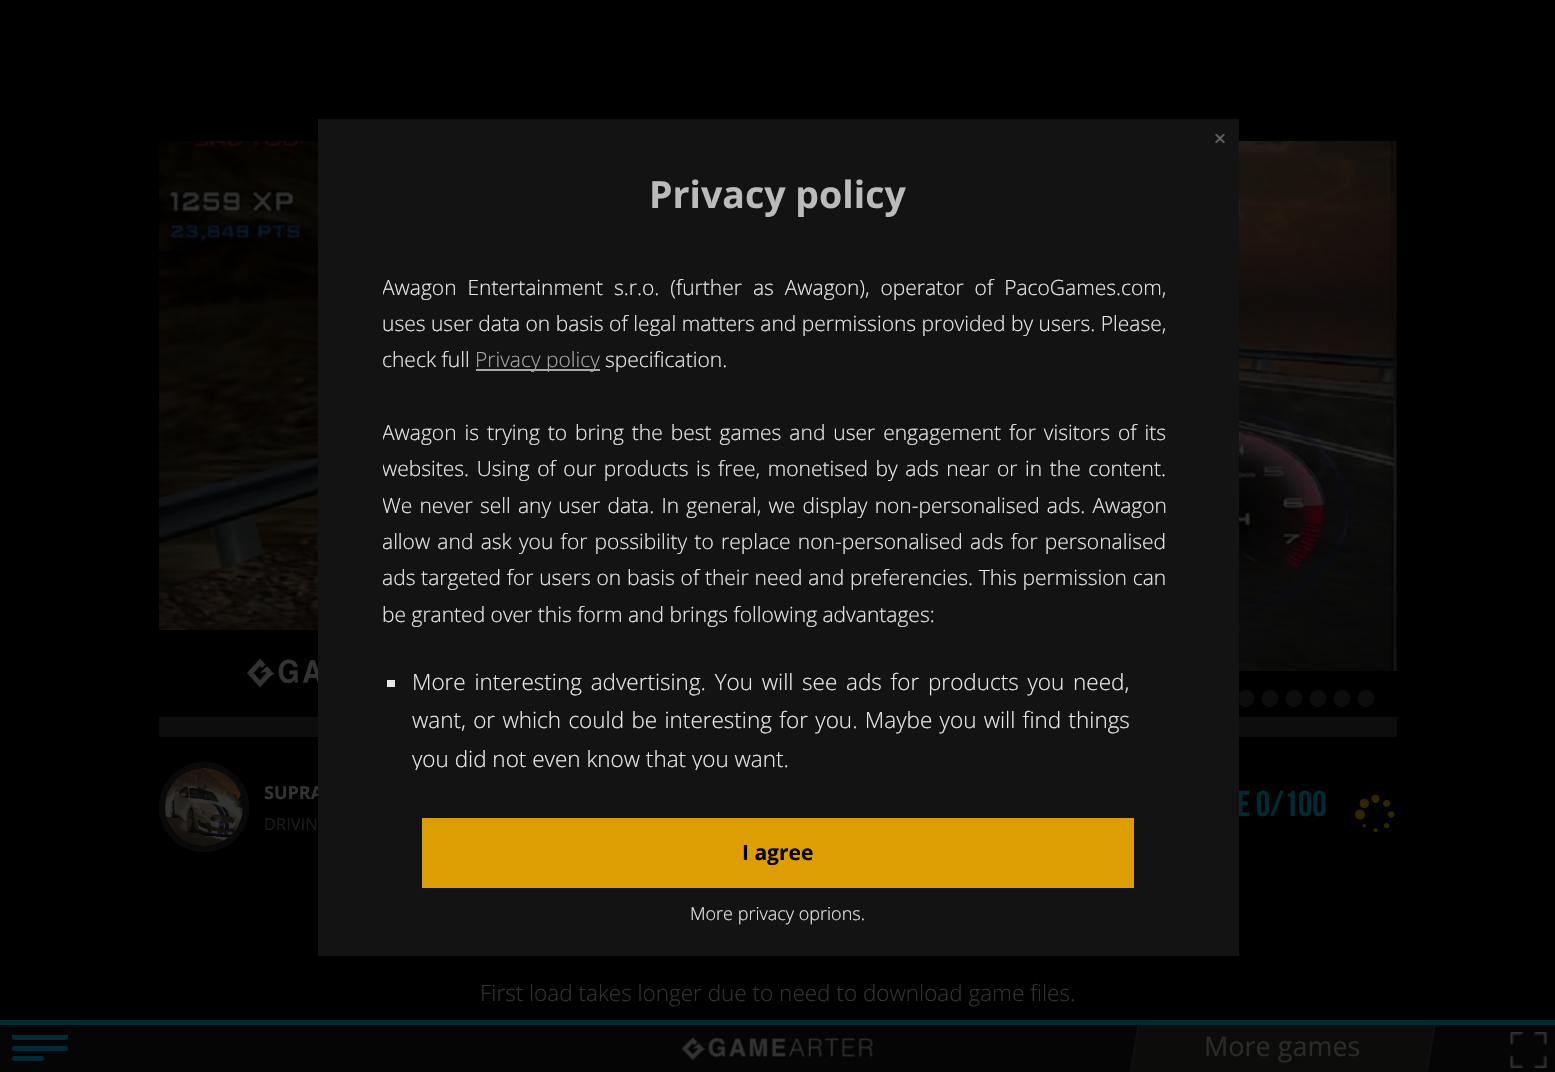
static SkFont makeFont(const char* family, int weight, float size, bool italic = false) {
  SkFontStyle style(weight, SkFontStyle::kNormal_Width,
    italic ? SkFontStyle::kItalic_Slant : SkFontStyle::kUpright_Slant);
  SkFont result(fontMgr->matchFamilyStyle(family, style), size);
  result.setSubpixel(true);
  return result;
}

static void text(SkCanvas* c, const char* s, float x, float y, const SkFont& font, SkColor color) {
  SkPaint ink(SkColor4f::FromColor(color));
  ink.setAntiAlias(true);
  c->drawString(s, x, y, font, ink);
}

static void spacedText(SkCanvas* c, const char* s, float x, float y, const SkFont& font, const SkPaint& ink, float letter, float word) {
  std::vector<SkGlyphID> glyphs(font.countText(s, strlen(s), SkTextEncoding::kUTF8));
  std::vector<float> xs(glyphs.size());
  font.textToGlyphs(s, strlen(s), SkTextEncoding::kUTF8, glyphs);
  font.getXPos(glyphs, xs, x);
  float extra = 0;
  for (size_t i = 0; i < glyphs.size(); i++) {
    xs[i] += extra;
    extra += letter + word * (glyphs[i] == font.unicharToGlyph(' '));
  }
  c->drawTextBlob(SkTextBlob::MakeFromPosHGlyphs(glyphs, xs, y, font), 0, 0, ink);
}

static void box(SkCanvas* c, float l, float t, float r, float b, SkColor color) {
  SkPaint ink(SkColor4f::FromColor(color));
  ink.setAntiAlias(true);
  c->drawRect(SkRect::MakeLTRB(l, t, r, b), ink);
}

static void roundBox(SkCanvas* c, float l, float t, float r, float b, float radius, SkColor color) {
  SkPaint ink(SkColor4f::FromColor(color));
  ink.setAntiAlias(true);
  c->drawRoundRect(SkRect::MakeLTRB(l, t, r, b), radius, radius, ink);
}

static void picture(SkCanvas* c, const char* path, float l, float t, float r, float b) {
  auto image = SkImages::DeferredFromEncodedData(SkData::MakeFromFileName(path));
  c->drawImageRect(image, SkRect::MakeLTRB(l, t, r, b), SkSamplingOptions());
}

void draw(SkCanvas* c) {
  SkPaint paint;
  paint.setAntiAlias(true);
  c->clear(0xff050505);
  box(c, 0, 0, 1555, 1020, 0xff000000);
  picture(c, "img_02.png", 159, 141, 1397, 671);
  roundBox(c, 1238, 690, 1254, 707, 8, 0xff0d0d0d);
  box(c, 159, 717, 1397, 737, 0xff0d0d0d);
  SkFont face1 = makeFont("Open Sans", 700, 18);
  text(c, "SUPRA", 264, 799, face1, 0xff333333);
  SkFont face2 = makeFont("Bebas Neue", 400, 36);
  text(c, "e 0/100", 1237, 816, face2, 0xff002b33);
  box(c, 318, 119, 1239, 956, 0xff131313);
  picture(c, "img_01.png", 1215, 134, 1225, 143);
  SkFont face3 = makeFont("Open Sans", 700, 37.5f);
  text(c, "Privacy policy", 649, 208, face3, 0xffbbbbbb);
  c->save();
  c->clipRect(SkRect::MakeLTRB(383, 270, 1175, 770));
  SkFont face4 = makeFont("Open Sans", 300, 21);
  paint.setColor(0xffe8e8e8);
  spacedText(c, "Awagon Entertainment s.r.o. (further as Awagon), operator of PacoGames.com,", 382, 295, face4, paint, 0, 5.5f);
  c->restore();
  text(c, "uses user data on basis of legal matters and permissions provided by users. Please,", 382, 331, face4, 0xffe8e8e8);
  text(c, "check full", 382, 367, face4, 0xffe8e8e8);
  box(c, 476, 369, 600, 371, 0xffa8a8a8);
  text(c, "Privacy policy", 475, 367, face4, 0xffa8a8a8);
  text(c, "specification.", 605, 367, face4, 0xffe8e8e8);
  c->save();
  c->clipRect(SkRect::MakeLTRB(383, 270, 1175, 770));
  spacedText(c, "Awagon is trying to bring the best games and user engagement for visitors of its", 382, 440, face4, paint, 0, 2.5f);
  spacedText(c, "websites. Using of our products is free, monetised by ads near or in the content.", 382, 476, face4, paint, 0, 2.1f);
  spacedText(c, "We never sell any user data. In general, we display non-personalised ads. Awagon", 382, 513, face4, paint, 0, 1.75f);
  c->restore();
  spacedText(c, "allow and ask you for possibility to replace non-personalised ads for personalised", 382, 549, face4, paint, 0, 1.8f);
  spacedText(c, "ads targeted for users on basis of their need and preferencies. This permission can", 382, 585, face4, paint, 0, 0.25f);
  text(c, "be granted over this form and brings following advantages:", 382, 622, face4, 0xffe8e8e8);
  box(c, 387, 680, 395, 687, 0xffe8e8e8);
  SkFont face5 = makeFont("Open Sans", 300, 22.5f);
  spacedText(c, "More interesting advertising. You will see ads for products you need,", 412, 690, face5, paint, 0, 2.9f);
  spacedText(c, "want, or which could be interesting for you. Maybe you will find things", 412, 728, face5, paint, 0, 1.5f);
  c->save();
  c->clipRect(SkRect::MakeLTRB(383, 270, 1175, 770));
  text(c, "you did not even know that you want.", 412, 767, face5, 0xffe8e8e8);
  c->restore();
  box(c, 422, 818, 1134, 888, 0xffdc9e03);
  SkFont face6 = makeFont("Open Sans", 700, 21);
  text(c, "I agree", 742, 860, face6, 0xff030303);
  SkFont face7 = makeFont("Open Sans", 300, 18);
  text(c, "More privacy oprions.", 690, 920, face7, 0xffe8e8e8);
  picture(c, "img_03.png", 159, 630, 318, 717);
  picture(c, "img_04.png", 247, 658, 318, 688);
  roundBox(c, 1262, 690, 1278, 707, 8, 0xff0d0d0d);
  roundBox(c, 1286, 690, 1302, 707, 8, 0xff0d0d0d);
  roundBox(c, 1310, 690, 1326, 707, 8, 0xff0d0d0d);
  roundBox(c, 1334, 690, 1350, 707, 8, 0xff0d0d0d);
  roundBox(c, 1358, 690, 1374, 707, 8, 0xff0d0d0d);
  paint.setStyle(SkPaint::kStroke_Style);
  paint.setStrokeWidth(6);
  paint.setColor(0xff090909);
  c->drawCircle(204, 807, 42, paint);
  picture(c, "img_05.png", 165, 768, 243, 846);
  SkFont face8 = makeFont("Open Sans", 400, 16.5f);
  text(c, "DRIVIN", 264, 830, face8, 0xff1b1b1b);
  picture(c, "img_06.png", 1355, 794, 1395, 833);
  text(c, "First load takes longer due to need to download game files.", 480, 1001, face5, 0xff333333);
  box(c, 12, 1035, 68, 1038, 0xff303030);
  roundBox(c, 12, 1035, 68, 1040, 2.5f, 0xff002b33);
  roundBox(c, 12, 1046, 68, 1051, 2.5f, 0xff002b33);
  roundBox(c, 12, 1056, 44, 1061, 2.5f, 0xff002b33);
  box(c, 0, 1020, 1555, 1025, 0xff002b33);
  picture(c, "img_07.png", 681, 1037, 873, 1061);
  c->save();
  c->clipRect(SkRect::MakeLTRB(0, 1025, 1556, 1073));
  paint.setStyle(SkPaint::kFill_Style);
  paint.setColor(0xff0c0c0b);
  c->drawPath(SkPathBuilder().moveTo(1138, 1024).lineTo(1436, 1024).lineTo(1427, 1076).lineTo(1129, 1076).close().detach(), paint);
  paint.setStyle(SkPaint::kStroke_Style);
  paint.setStrokeWidth(1.5f);
  paint.setColor(0x96111110);
  c->drawPath(SkPathBuilder().moveTo(1138.5f, 1025).lineTo(1434.5f, 1025).lineTo(1426, 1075).lineTo(1130, 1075).close().detach(), paint);
  c->restore();
  SkFont face9 = makeFont("Open Sans", 400, 27);
  text(c, "More games", 1204, 1056, face9, 0xff2b2b2b);
  picture(c, "img_08.png", 1510, 1032, 1547, 1068);
}
